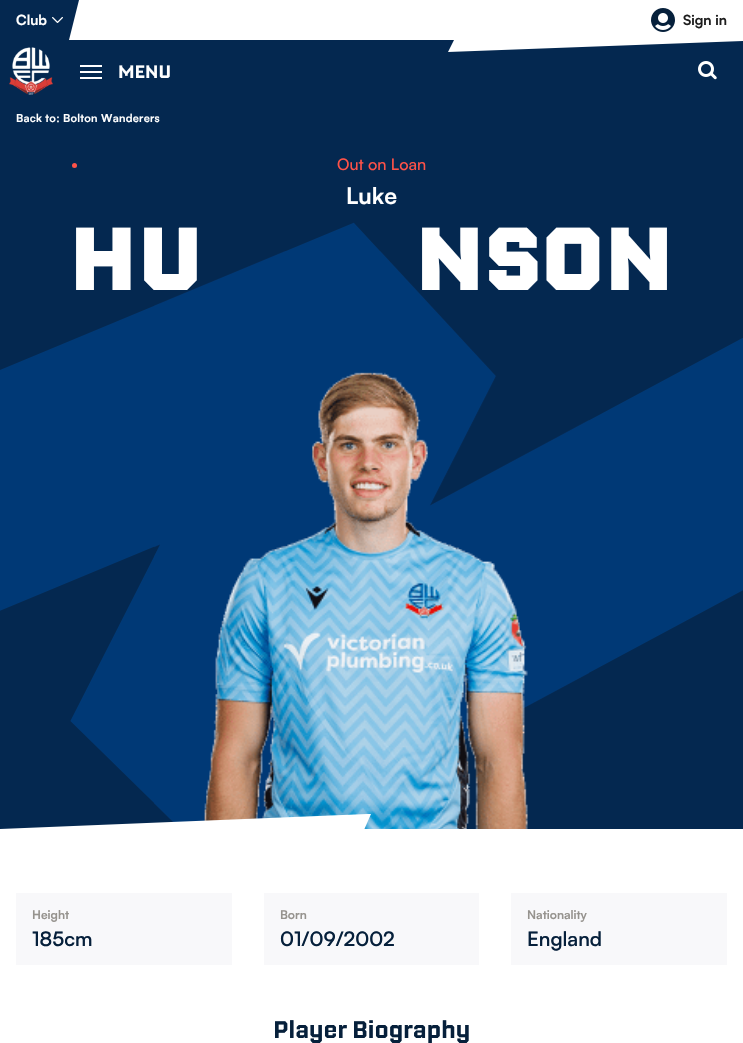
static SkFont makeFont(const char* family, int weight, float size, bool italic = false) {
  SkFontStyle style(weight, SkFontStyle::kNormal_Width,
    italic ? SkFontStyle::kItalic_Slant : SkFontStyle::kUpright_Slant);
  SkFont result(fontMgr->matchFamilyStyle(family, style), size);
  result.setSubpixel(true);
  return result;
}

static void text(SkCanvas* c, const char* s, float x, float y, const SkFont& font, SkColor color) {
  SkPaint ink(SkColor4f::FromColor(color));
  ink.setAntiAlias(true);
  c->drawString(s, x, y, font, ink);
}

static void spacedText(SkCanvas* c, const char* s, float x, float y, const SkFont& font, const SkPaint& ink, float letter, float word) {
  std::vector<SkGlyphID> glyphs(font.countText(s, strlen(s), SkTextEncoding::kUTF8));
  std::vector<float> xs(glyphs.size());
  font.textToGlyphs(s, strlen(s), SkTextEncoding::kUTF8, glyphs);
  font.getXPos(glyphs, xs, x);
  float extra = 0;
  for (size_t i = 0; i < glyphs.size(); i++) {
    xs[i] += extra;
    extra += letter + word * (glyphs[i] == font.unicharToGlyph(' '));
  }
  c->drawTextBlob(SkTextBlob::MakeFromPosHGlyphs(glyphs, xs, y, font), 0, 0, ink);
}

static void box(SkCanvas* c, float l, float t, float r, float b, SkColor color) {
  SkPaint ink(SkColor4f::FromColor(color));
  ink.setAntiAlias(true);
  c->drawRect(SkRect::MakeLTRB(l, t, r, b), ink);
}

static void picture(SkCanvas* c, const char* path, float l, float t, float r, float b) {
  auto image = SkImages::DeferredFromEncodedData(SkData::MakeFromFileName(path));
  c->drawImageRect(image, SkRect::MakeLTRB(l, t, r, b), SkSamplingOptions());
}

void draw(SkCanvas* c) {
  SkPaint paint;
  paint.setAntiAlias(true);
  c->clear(0xffffffff);
  paint.setColor(0xff042850);
  c->drawPath(SkPathBuilder().moveTo(-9, 0).lineTo(79, 0).lineTo(69, 40).lineTo(-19, 40).close().detach(), paint);
  SkFont face1 = makeFont("Satoshi", 700, 14);
  text(c, "Club", 16, 25, face1, 0xffffffff);
  picture(c, "img_01.png", 52, 17, 63, 23);
  picture(c, "img_02.png", 651, 8, 675, 32);
  text(c, "Sign in", 683, 25, face1, 0xff1e1e1e);
  box(c, 0, 40, 743, 102, 0xff042850);
  paint.setColor(0xffffffff);
  c->drawPath(SkPathBuilder().moveTo(743, 41).lineTo(448, 52).lineTo(454, 40).lineTo(743, 40).close().detach(), paint);
  picture(c, "img_03.png", 9, 47, 53, 95);
  box(c, 80, 71, 102, 73, 0xffffffff);
  box(c, 80, 65, 102, 67, 0xffffffff);
  box(c, 80, 77, 102, 79, 0xffffffff);
  SkFont face2 = makeFont("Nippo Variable", 500, 18);
  text(c, "MENU", 118, 78, face2, 0xffffffff);
  picture(c, "img_04.png", 698, 61, 717, 80);
  box(c, 0, 102, 743, 829, 0xff042850);
  SkFont face3 = makeFont("Satoshi", 700, 11);
  spacedText(c, "Back to: Bolton Wanderers", 16, 122, face3, paint, 0.25f, 0);
  paint.setColor(0xffff5248);
  c->drawCircle(74.5f, 165.5f, 2.5f, paint);
  SkFont face4 = makeFont("Satoshi", 500, 16);
  text(c, "Out on Loan", 337, 170, face4, 0xffff5248);
  SkFont face5 = makeFont("Satoshi", 700, 23);
  text(c, "Luke", 346, 204, face5, 0xffffffff);
  c->save();
  c->clipRect(SkRect::MakeLTRB(0, 136, 743, 829));
  paint.setStyle(SkPaint::kStroke_Style);
  paint.setStrokeWidth(222.4f);
  paint.setStrokeJoin(SkPaint::kBevel_Join);
  paint.setColor(0xff003976);
  c->drawPath(SkPathBuilder().moveTo(-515, 704.5f).lineTo(396.5f, 325.5f).lineTo(169.5f, 771.5f).lineTo(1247.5f, 193.5f).detach(), paint);
  c->restore();
  SkFont face6 = makeFont("Nippo Variable", 700, 89);
  text(c, "HU", 69, 290, face6, 0xffffffff);
  text(c, "NSON", 415, 290, face6, 0xffffffff);
  picture(c, "img_05.png", 154, 251, 589, 829);
  c->save();
  c->clipRect(SkRect::MakeLTRB(0, 136, 743, 829));
  paint.setStyle(SkPaint::kFill_Style);
  paint.setColor(0xffffffff);
  c->drawPath(SkPathBuilder().moveTo(0, 829).lineTo(0, 830).lineTo(364, 830).lineTo(371, 814).lineTo(367, 814).close().detach(), paint);
  c->restore();
  box(c, 16, 893, 232, 965, 0xfff8f8fa);
  SkFont face7 = makeFont("Satoshi", 700, 12);
  text(c, "Height", 32, 919, face7, 0xff96938e);
  SkFont face8 = makeFont("Satoshi", 600, 20);
  text(c, "185cm", 32, 946, face8, 0xff06203b);
  box(c, 264, 893, 479, 965, 0xfff8f8fa);
  text(c, "Born", 280, 919, face7, 0xff96938e);
  text(c, "01/09/2002", 280, 946, face8, 0xff06203b);
  box(c, 511, 893, 727, 965, 0xfff8f8fa);
  text(c, "Nationality", 527, 919, face7, 0xff96938e);
  text(c, "England", 527, 946, face8, 0xff06203b);
  SkFont face9 = makeFont("Nippo Variable", 500, 24);
  text(c, "Player Biography", 273, 1038, face9, 0xff06203b);
}
